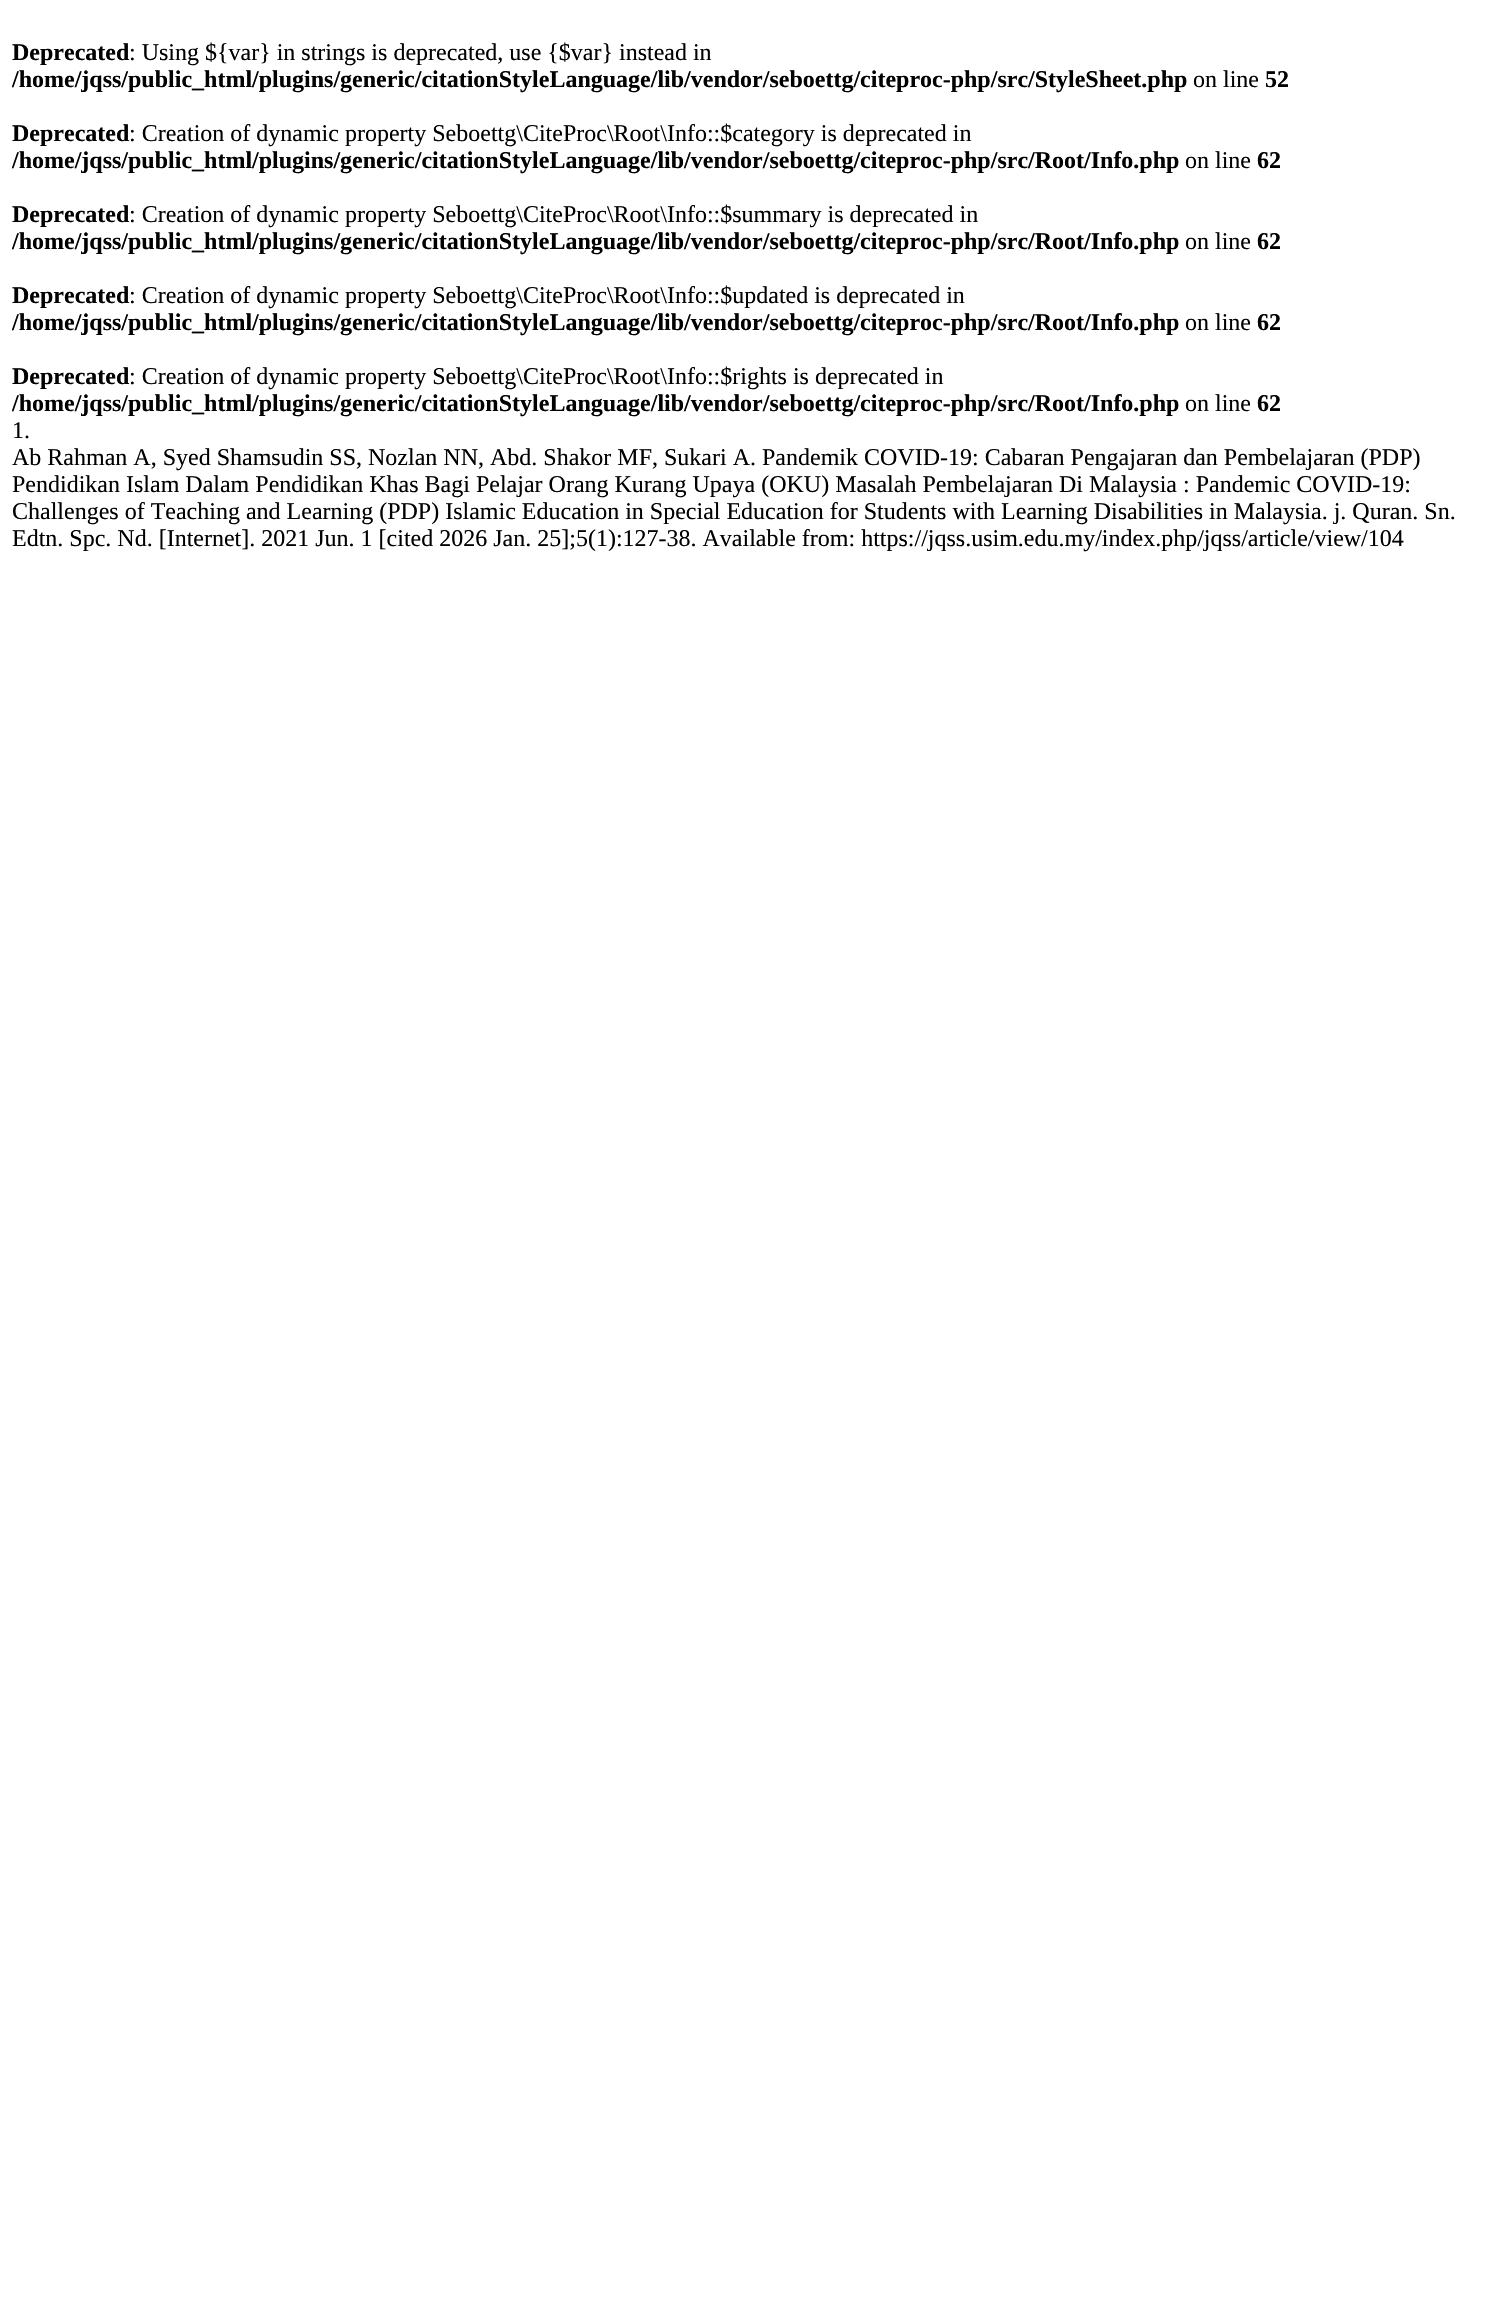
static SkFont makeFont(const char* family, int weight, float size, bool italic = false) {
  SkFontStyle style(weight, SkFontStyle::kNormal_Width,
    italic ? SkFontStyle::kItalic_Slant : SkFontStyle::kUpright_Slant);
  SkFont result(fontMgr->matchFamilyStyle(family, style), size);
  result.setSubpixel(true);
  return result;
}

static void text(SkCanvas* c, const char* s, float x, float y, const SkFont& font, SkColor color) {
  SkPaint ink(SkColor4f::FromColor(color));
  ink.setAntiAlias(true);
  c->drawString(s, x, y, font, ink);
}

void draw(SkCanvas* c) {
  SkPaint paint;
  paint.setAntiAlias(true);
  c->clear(0xffffffff);
  SkFont face1 = makeFont("Liberation Serif", 700, 24);
  text(c, "Deprecated", 12, 60, face1, 0xff000000);
  SkFont face2 = makeFont("Liberation Serif", 400, 24);
  text(c, ": Using ${var} in strings is deprecated, use {$var} instead in", 129, 60, face2, 0xff000000);
  text(c, "/home/jqss/public_html/plugins/generic/citationStyleLanguage/lib/vendor/seboettg/citeproc-php/src/StyleSheet.php", 12, 87, face1, 0xff000000);
  text(c, "on line", 1193, 87, face2, 0xff000000);
  text(c, "52", 1265, 87, face1, 0xff000000);
  text(c, "Deprecated", 12, 141, face1, 0xff000000);
  text(c, ": Creation of dynamic property Seboettg\\CiteProc\\Root\\Info::$category is deprecated in", 129, 141, face2, 0xff000000);
  text(c, "/home/jqss/public_html/plugins/generic/citationStyleLanguage/lib/vendor/seboettg/citeproc-php/src/Root/Info.php", 12, 168, face1, 0xff000000);
  text(c, "on line", 1185, 168, face2, 0xff000000);
  text(c, "62", 1257, 168, face1, 0xff000000);
  text(c, "Deprecated", 12, 222, face1, 0xff000000);
  text(c, ": Creation of dynamic property Seboettg\\CiteProc\\Root\\Info::$summary is deprecated in", 129, 222, face2, 0xff000000);
  text(c, "/home/jqss/public_html/plugins/generic/citationStyleLanguage/lib/vendor/seboettg/citeproc-php/src/Root/Info.php", 12, 249, face1, 0xff000000);
  text(c, "on line", 1185, 249, face2, 0xff000000);
  text(c, "62", 1257, 249, face1, 0xff000000);
  text(c, "Deprecated", 12, 303, face1, 0xff000000);
  text(c, ": Creation of dynamic property Seboettg\\CiteProc\\Root\\Info::$updated is deprecated in", 129, 303, face2, 0xff000000);
  text(c, "/home/jqss/public_html/plugins/generic/citationStyleLanguage/lib/vendor/seboettg/citeproc-php/src/Root/Info.php", 12, 330, face1, 0xff000000);
  text(c, "on line", 1185, 330, face2, 0xff000000);
  text(c, "62", 1257, 330, face1, 0xff000000);
  text(c, "Deprecated", 12, 384, face1, 0xff000000);
  text(c, ": Creation of dynamic property Seboettg\\CiteProc\\Root\\Info::$rights is deprecated in", 129, 384, face2, 0xff000000);
  text(c, "/home/jqss/public_html/plugins/generic/citationStyleLanguage/lib/vendor/seboettg/citeproc-php/src/Root/Info.php", 12, 411, face1, 0xff000000);
  text(c, "on line", 1185, 411, face2, 0xff000000);
  text(c, "62", 1257, 411, face1, 0xff000000);
  text(c, "1.", 12, 438, face2, 0xff000000);
  text(c, "Ab Rahman A, Syed Shamsudin SS, Nozlan NN, Abd. Shakor MF, Sukari A. Pandemik COVID-19: Cabaran Pengajaran dan Pembelajaran (PDP)", 12, 465, face2, 0xff000000);
  text(c, "Pendidikan Islam Dalam Pendidikan Khas Bagi Pelajar Orang Kurang Upaya (OKU) Masalah Pembelajaran Di Malaysia : Pandemic COVID-19:", 12, 492, face2, 0xff000000);
  text(c, "Challenges of Teaching and Learning (PDP) Islamic Education in Special Education for Students with Learning Disabilities in Malaysia. j. Quran. Sn.", 12, 519, face2, 0xff000000);
  text(c, "Edtn. Spc. Nd. [Internet]. 2021 Jun. 1 [cited 2026 Jan. 25];5(1):127-38. Available from: https://jqss.usim.edu.my/index.php/jqss/article/view/104", 12, 546, face2, 0xff000000);
}
